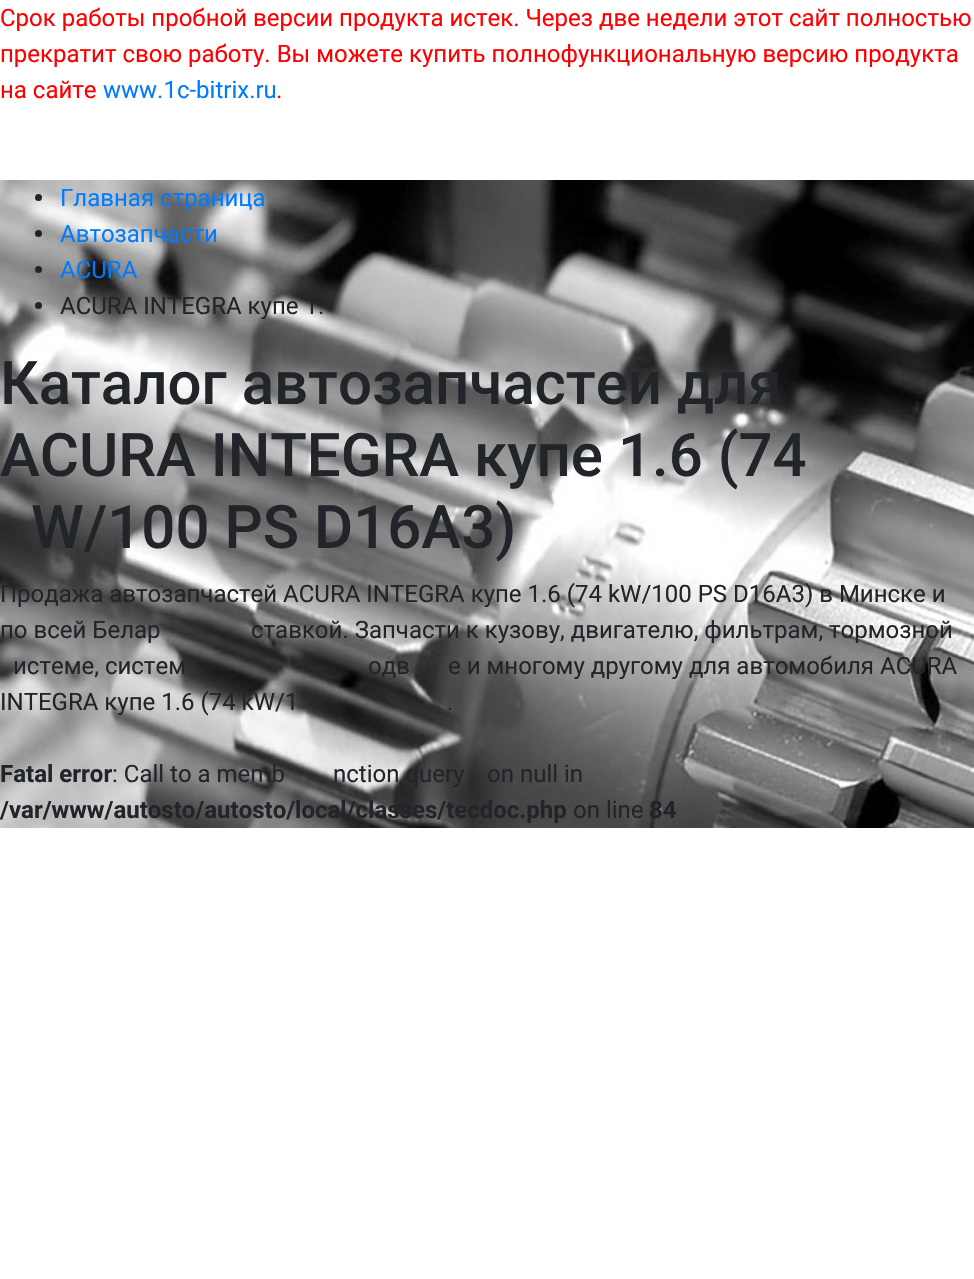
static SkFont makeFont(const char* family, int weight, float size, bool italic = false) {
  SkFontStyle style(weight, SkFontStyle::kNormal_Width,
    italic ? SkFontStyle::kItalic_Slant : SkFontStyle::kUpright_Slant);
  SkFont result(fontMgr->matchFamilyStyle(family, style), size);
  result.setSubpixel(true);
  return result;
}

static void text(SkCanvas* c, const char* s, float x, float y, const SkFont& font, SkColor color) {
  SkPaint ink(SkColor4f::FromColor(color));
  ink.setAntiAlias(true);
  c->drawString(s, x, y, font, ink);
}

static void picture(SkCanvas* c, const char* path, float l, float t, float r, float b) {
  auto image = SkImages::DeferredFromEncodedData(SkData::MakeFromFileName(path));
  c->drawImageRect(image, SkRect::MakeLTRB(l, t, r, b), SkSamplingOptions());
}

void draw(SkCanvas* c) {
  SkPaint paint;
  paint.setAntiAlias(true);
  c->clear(0xffffffff);
  SkFont face1 = makeFont("Roboto", 400, 24);
  text(c, "Срок работы пробной версии продукта истек. Через две недели этот сайт полностью", 0, 26, face1, 0xffff0000);
  text(c, "прекратит свою работу. Вы можете купить полнофункциональную версию продукта", 0, 62, face1, 0xffff0000);
  text(c, "на сайте", 0, 98, face1, 0xffff0000);
  text(c, "www.1c-bitrix.ru", 103, 98, face1, 0xff007bff);
  text(c, ".", 276, 98, face1, 0xffff0000);
  picture(c, "img_01.png", 0, 180, 974, 828);
  paint.setColor(0xff212529);
  c->drawCircle(38.5f, 197.5f, 3.5f, paint);
  text(c, "Главная страница", 60, 206, face1, 0xff007bff);
  c->drawCircle(38.5f, 233.5f, 3.5f, paint);
  text(c, "Автозапчасти", 60, 242, face1, 0xff007bff);
  c->drawCircle(38.5f, 269.5f, 3.5f, paint);
  text(c, "ACURA", 60, 278, face1, 0xff007bff);
  c->drawCircle(38.5f, 305.5f, 3.5f, paint);
  text(c, "ACURA INTEGRA купе 1.", 60, 314, face1, 0xff212529);
  SkFont face2 = makeFont("Roboto", 500, 60);
  text(c, "Каталог автозапчастей для", 0, 404, face2, 0xff212529);
  text(c, "ACURA INTEGRA купе 1.6 (74", 0, 476, face2, 0xff212529);
  text(c, "W/100 PS D16A3)", 31, 548, face2, 0xff212529);
  text(c, "Продажа автозапчастей ACURA INTEGRA купе 1.6 (74 kW/100 PS D16A3) в Минске и", 0, 602, face1, 0xff212529);
  text(c, "по всей Белар", 0, 638, face1, 0xff212529);
  text(c, "ставкой. Запчасти к кузову, двигателю, фильтрам, тормозной", 251, 638, face1, 0xff212529);
  text(c, "истеме, систем", 13, 674, face1, 0xff212529);
  text(c, "одв", 368, 674, face1, 0xff212529);
  text(c, "е и многому другому для автомобиля ACURA", 448, 674, face1, 0xff212529);
  text(c, "INTEGRA купе 1.6 (74 kW/1", 0, 710, face1, 0xff212529);
  text(c, ".", 447, 710, face1, 0xff212529);
  SkFont face3 = makeFont("Roboto", 700, 24);
  text(c, "Fatal error", 0, 782, face3, 0xff212529);
  text(c, ": Call to a memb", 112, 782, face1, 0xff212529);
  text(c, "nction query", 333, 782, face1, 0xff212529);
  text(c, "on null in", 487, 782, face1, 0xff212529);
  text(c, "/var/www/autosto/autosto/local/classes/tecdoc.php", 0, 818, face3, 0xff212529);
  text(c, "on line", 573, 818, face1, 0xff212529);
  text(c, "84", 649, 818, face3, 0xff212529);
}
